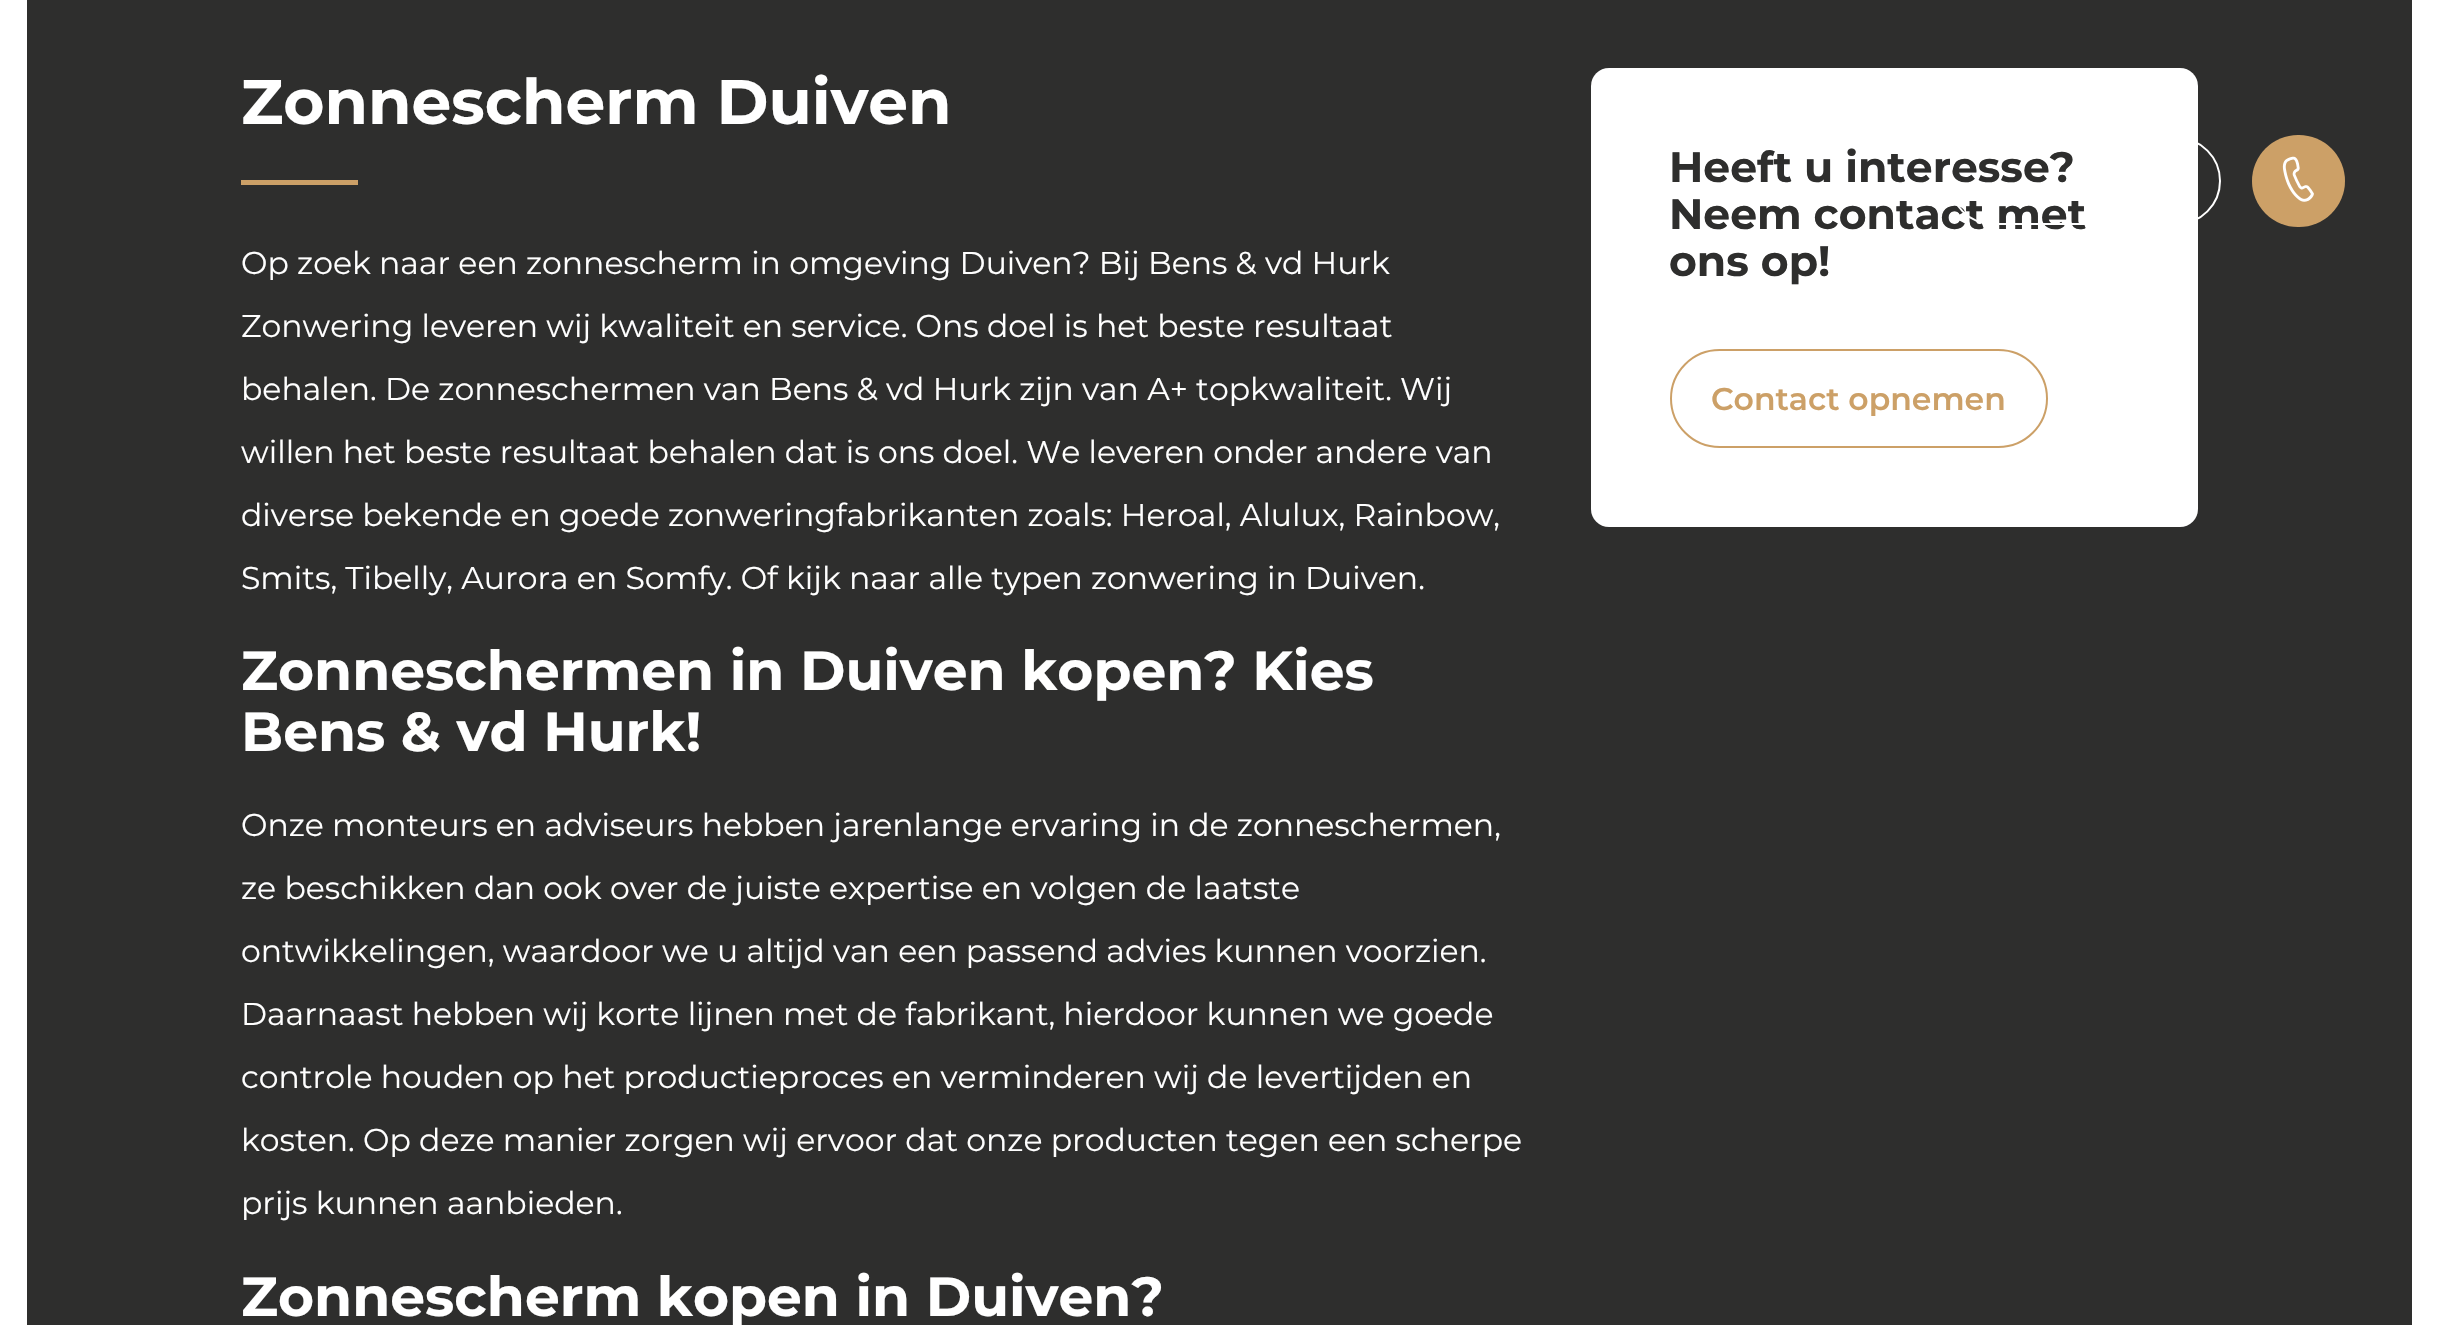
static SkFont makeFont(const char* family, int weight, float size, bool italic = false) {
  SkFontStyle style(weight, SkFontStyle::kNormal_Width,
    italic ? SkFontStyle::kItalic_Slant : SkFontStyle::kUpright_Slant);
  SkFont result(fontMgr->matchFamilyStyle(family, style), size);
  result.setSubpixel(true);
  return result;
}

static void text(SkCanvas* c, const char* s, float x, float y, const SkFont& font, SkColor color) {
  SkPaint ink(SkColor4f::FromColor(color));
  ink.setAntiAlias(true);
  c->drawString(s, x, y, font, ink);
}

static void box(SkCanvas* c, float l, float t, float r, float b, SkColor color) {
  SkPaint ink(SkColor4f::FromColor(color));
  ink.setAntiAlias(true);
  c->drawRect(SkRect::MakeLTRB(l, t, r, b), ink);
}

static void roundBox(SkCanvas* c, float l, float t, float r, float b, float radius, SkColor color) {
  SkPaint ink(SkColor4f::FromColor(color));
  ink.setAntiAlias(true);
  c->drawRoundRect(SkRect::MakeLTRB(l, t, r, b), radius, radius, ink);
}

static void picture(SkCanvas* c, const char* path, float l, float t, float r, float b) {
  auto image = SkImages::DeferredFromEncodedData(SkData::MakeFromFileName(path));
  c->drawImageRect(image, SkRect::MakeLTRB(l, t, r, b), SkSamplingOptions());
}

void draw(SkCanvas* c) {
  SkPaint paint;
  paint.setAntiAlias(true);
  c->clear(0xff2e2e2d);
  paint.setStyle(SkPaint::kStroke_Style);
  paint.setStrokeWidth(27);
  paint.setColor(0xffffffff);
  c->drawRect(SkRect::MakeLTRB(13.5f, -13.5f, 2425.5f, 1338.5f), paint);
  SkFont face1 = makeFont("Montserrat", 700, 63);
  text(c, "Zonnescherm Duiven", 241, 124, face1, 0xffffffff);
  box(c, 241, 180, 358, 185, 0xffcca067);
  SkFont face2 = makeFont("Montserrat", 400, 31.5f);
  text(c, "Op zoek naar een zonnescherm in omgeving Duiven? Bij Bens & vd Hurk", 241, 274, face2, 0xffffffff);
  text(c, "Zonwering leveren wij kwaliteit en service. Ons doel is het beste resultaat", 241, 337, face2, 0xffffffff);
  text(c, "behalen. De zonneschermen van Bens & vd Hurk zijn van A+ topkwaliteit. Wij", 241, 400, face2, 0xffffffff);
  text(c, "willen het beste resultaat behalen dat is ons doel. We leveren onder andere van", 241, 463, face2, 0xffffffff);
  text(c, "diverse bekende en goede zonweringfabrikanten zoals: Heroal, Alulux, Rainbow,", 241, 526, face2, 0xffffffff);
  text(c, "Smits, Tibelly, Aurora en Somfy. Of kijk naar alle typen zonwering in Duiven.", 241, 589, face2, 0xffffffff);
  SkFont face3 = makeFont("Montserrat", 700, 55.1f);
  text(c, "Zonneschermen in Duiven kopen? Kies", 241, 690, face3, 0xffffffff);
  text(c, "Bens & vd Hurk!", 241, 751, face3, 0xffffffff);
  text(c, "Onze monteurs en adviseurs hebben jarenlange ervaring in de zonneschermen,", 241, 836, face2, 0xffffffff);
  text(c, "ze beschikken dan ook over de juiste expertise en volgen de laatste", 241, 899, face2, 0xffffffff);
  text(c, "ontwikkelingen, waardoor we u altijd van een passend advies kunnen voorzien.", 241, 962, face2, 0xffffffff);
  text(c, "Daarnaast hebben wij korte lijnen met de fabrikant, hierdoor kunnen we goede", 241, 1025, face2, 0xffffffff);
  text(c, "controle houden op het productieproces en verminderen wij de levertijden en", 241, 1088, face2, 0xffffffff);
  text(c, "kosten. Op deze manier zorgen wij ervoor dat onze producten tegen een scherpe", 241, 1151, face2, 0xffffffff);
  text(c, "prijs kunnen aanbieden.", 241, 1214, face2, 0xffffffff);
  text(c, "Zonnescherm kopen in Duiven?", 241, 1316, face3, 0xffffffff);
  roundBox(c, 1591, 68, 2198, 527, 18, 0xffffffff);
  SkFont face4 = makeFont("Montserrat", 700, 42.5f);
  text(c, "Heeft u interesse?", 1669, 182, face4, 0xff2e2e2d);
  text(c, "Neem contact met", 1669, 229, face4, 0xff2e2e2d);
  text(c, "ons op!", 1669, 276, face4, 0xff2e2e2d);
  paint.setStrokeWidth(2);
  paint.setColor(0xffcca067);
  c->drawRoundRect(SkRect::MakeLTRB(1671, 350, 2047, 447), 48.5f, 48.5f, paint);
  SkFont face5 = makeFont("Montserrat", 600, 31.5f);
  text(c, "Contact opnemen", 1711, 410, face5, 0xffcca067);
  paint.setColor(0xffffffff);
  c->drawRoundRect(SkRect::MakeLTRB(1950, 138, 2220, 224), 43, 43, paint);
  roundBox(c, 2252, 135, 2345, 227, 46, 0xffcca067);
  picture(c, "img_01.png", 2282, 156, 2314, 202);
}
